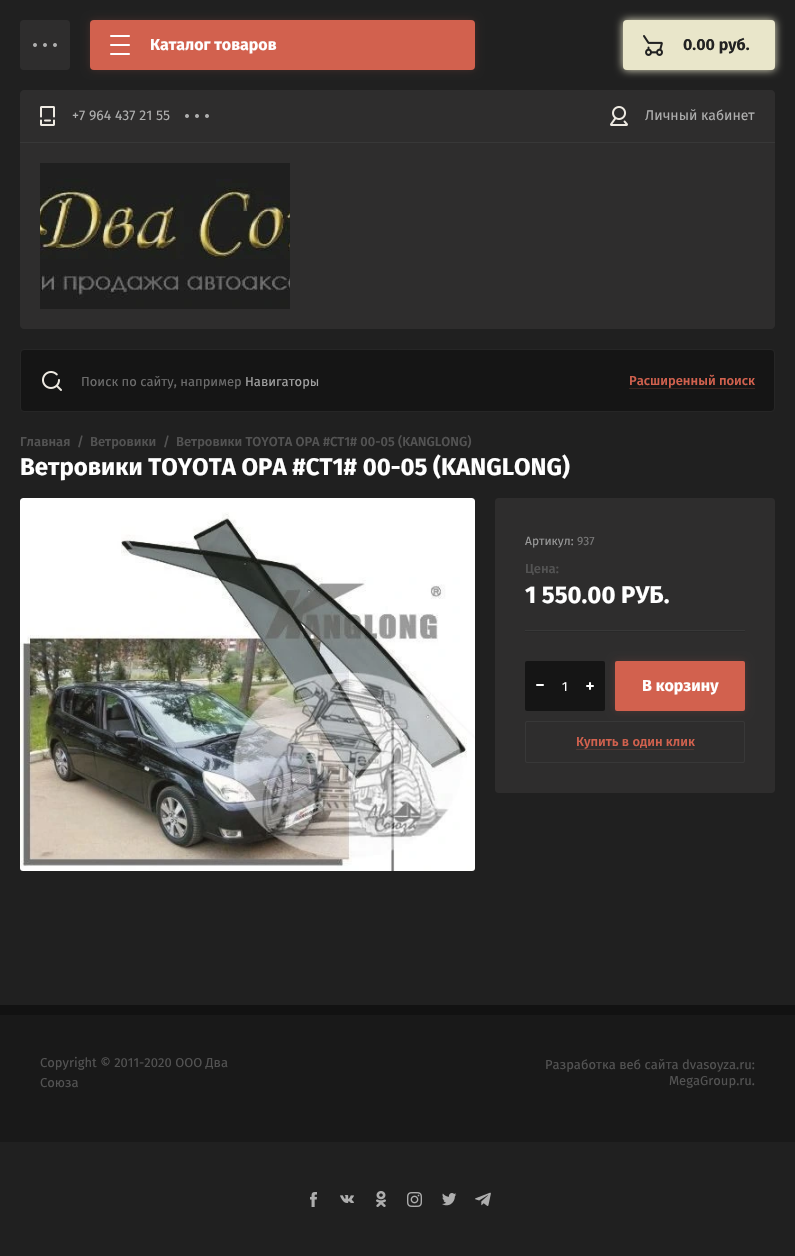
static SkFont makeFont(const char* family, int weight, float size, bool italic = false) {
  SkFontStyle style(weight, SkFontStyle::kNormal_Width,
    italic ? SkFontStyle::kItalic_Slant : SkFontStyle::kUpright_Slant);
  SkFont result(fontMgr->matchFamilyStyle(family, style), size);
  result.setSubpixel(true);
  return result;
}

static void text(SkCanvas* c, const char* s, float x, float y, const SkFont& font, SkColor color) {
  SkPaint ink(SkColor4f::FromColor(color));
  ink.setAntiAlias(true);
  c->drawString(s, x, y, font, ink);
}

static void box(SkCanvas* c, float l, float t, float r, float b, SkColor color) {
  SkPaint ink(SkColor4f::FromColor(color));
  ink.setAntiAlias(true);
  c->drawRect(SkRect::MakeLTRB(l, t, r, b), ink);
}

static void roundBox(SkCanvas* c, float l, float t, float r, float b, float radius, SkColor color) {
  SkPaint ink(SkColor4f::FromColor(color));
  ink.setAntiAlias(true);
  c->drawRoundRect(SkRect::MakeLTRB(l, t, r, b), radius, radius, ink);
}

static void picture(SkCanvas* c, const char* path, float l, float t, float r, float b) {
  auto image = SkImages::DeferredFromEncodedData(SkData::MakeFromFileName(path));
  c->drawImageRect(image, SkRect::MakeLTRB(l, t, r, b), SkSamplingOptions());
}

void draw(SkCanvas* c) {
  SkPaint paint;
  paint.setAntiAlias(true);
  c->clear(0xff202020);
  roundBox(c, 20, 20, 70, 70, 4, 0xff2e2d2d);
  picture(c, "img_01.png", 33, 43, 57, 47);
  paint.setColor(0x33d2614e);
  paint.setMaskFilter(SkMaskFilter::MakeBlur(kNormal_SkBlurStyle, 4));
  c->drawRoundRect(SkRect::MakeLTRB(90, 20, 475, 70), 4, 4, paint);
  paint.setMaskFilter(nullptr);
  roundBox(c, 90, 20, 475, 70, 4, 0xffd2614e);
  picture(c, "img_02.png", 110, 35, 130, 55);
  SkFont face1 = makeFont("Fira Sans", 700, 16);
  text(c, "Каталог товаров", 150, 50, face1, 0xffffffff);
  paint.setColor(0xffe9e6ca);
  paint.setMaskFilter(SkMaskFilter::MakeBlur(kNormal_SkBlurStyle, 4));
  c->drawRoundRect(SkRect::MakeLTRB(623, 20, 775, 70), 4, 4, paint);
  paint.setMaskFilter(nullptr);
  roundBox(c, 623, 20, 775, 70, 4, 0xffe9e6ca);
  picture(c, "img_03.png", 643, 35, 663, 56);
  text(c, "0.00 руб.", 683, 50, face1, 0xff222222);
  paint.setColor(0xff2e2d2d);
  c->drawPath(SkPathBuilder().moveTo(24, 90).lineTo(771, 90).cubicTo(773, 90, 775, 92, 775, 94).lineTo(775, 143).lineTo(20, 143).lineTo(20, 94).cubicTo(20, 92, 22, 90, 24, 90).close().detach(), paint);
  box(c, 20, 142, 775, 143, 0xff383838);
  picture(c, "img_04.png", 40, 106, 55, 126);
  SkFont face2 = makeFont("Fira Sans", 400, 14);
  text(c, "+7 964 437 21 55", 72, 120, face2, 0xffaeaeae);
  picture(c, "img_01.png", 185, 114, 209, 118);
  picture(c, "img_05.png", 610, 106, 628, 126);
  text(c, "Личный кабинет", 645, 120, face2, 0xffaeaeae);
  c->drawPath(SkPathBuilder().moveTo(20, 143).lineTo(775, 143).lineTo(775, 325).cubicTo(775, 327, 773, 329, 771, 329).lineTo(24, 329).cubicTo(22, 329, 20, 327, 20, 325).close().detach(), paint);
  picture(c, "img_06.png", 40, 163, 290, 309);
  paint.setColor(0xff151515);
  c->drawRoundRect(SkRect::MakeLTRB(20.5f, 349.5f, 774.5f, 411.5f), 3.5f, 3.5f, paint);
  paint.setStyle(SkPaint::kStroke_Style);
  paint.setStrokeWidth(1);
  paint.setColor(0xff262626);
  c->drawRoundRect(SkRect::MakeLTRB(20.5f, 349.5f, 774.5f, 411.5f), 3.5f, 3.5f, paint);
  picture(c, "img_07.png", 42, 371, 62, 391);
  SkFont face3 = makeFont("Fira Sans", 400, 13);
  text(c, "Поиск по сайту, например", 81, 386, face3, 0xff6d6d6d);
  text(c, "Навигаторы", 245, 386, face3, 0xffa4a4a4);
  SkFont face4 = makeFont("Fira Sans", 500, 13);
  text(c, "Расширенный поиск", 629, 385, face4, 0xffd2614e);
  box(c, 629, 388, 755, 389, 0xff3b2420);
  text(c, "Главная", 20, 446, face4, 0xff535353);
  text(c, "/", 77, 446, face4, 0xff535353);
  text(c, "Ветровики", 90, 446, face4, 0xff535353);
  text(c, "/", 163, 446, face4, 0xff535353);
  text(c, "Ветровики TOYOTA OPA #CT1# 00-05 (KANGLONG)", 176, 446, face4, 0xff535353);
  SkFont face5 = makeFont("Fira Sans", 700, 24);
  text(c, "Ветровики TOYOTA OPA #CT1# 00-05 (KANGLONG)", 20, 475, face5, 0xffffffff);
  picture(c, "img_08.png", 20, 498, 475, 871);
  roundBox(c, 495, 498, 775, 793, 4, 0xff2e2d2d);
  SkFont face6 = makeFont("Fira Sans", 400, 12);
  text(c, "Артикул:", 525, 545, face6, 0xff999999);
  text(c, "937", 577, 545, face6, 0xff777777);
  box(c, 525, 631, 745, 632, 0xff292929);
  box(c, 525, 630, 745, 631, 0xff383838);
  text(c, "Цена:", 525, 573, face4, 0xff535353);
  text(c, "1 550.00 РУБ.", 525, 603, face5, 0xffffffff);
  roundBox(c, 525, 661, 605, 711, 2, 0xff151515);
  picture(c, "img_09.png", 536, 684, 544, 686);
  text(c, "1", 562, 691, face3, 0xffffffff);
  picture(c, "img_10.png", 586, 682, 594, 690);
  paint.setColor(0xff383838);
  c->drawRoundRect(SkRect::MakeLTRB(525.5f, 721.5f, 744.5f, 762.5f), 1.5f, 1.5f, paint);
  paint.setStyle(SkPaint::kFill_Style);
  paint.setColor(0x33d2614e);
  paint.setMaskFilter(SkMaskFilter::MakeBlur(kNormal_SkBlurStyle, 4));
  c->drawRoundRect(SkRect::MakeLTRB(615, 661, 745, 711), 2, 2, paint);
  paint.setMaskFilter(nullptr);
  roundBox(c, 615, 661, 745, 711, 2, 0xffd2614e);
  text(c, "В корзину", 642, 691, face1, 0xffffffff);
  text(c, "Купить в один клик", 576, 746, face4, 0xffd2614e);
  box(c, 576, 749, 694, 750, 0xff4f3734);
  box(c, 0, 1015, 795, 1142, 0xff191919);
  box(c, 0, 1005, 795, 1015, 0xff121212);
  text(c, "Copyright © 2011-2020 ООО Два", 40, 1067, face3, 0xff535353);
  text(c, "Союза", 40, 1087, face3, 0xff535353);
  text(c, "Разработка веб сайта dvasoyza.ru:", 545, 1069, face3, 0xff535353);
  text(c, "MegaGroup.ru.", 669, 1085, face3, 0xff535353);
  picture(c, "img_11.png", 310, 1192, 317, 1207);
  picture(c, "img_12.png", 340, 1195, 354, 1203);
  picture(c, "img_13.png", 376, 1191, 386, 1207);
  picture(c, "img_14.png", 407, 1192, 422, 1207);
  picture(c, "img_15.png", 442, 1193, 457, 1206);
  picture(c, "img_16.png", 475, 1192, 491, 1206);
}
